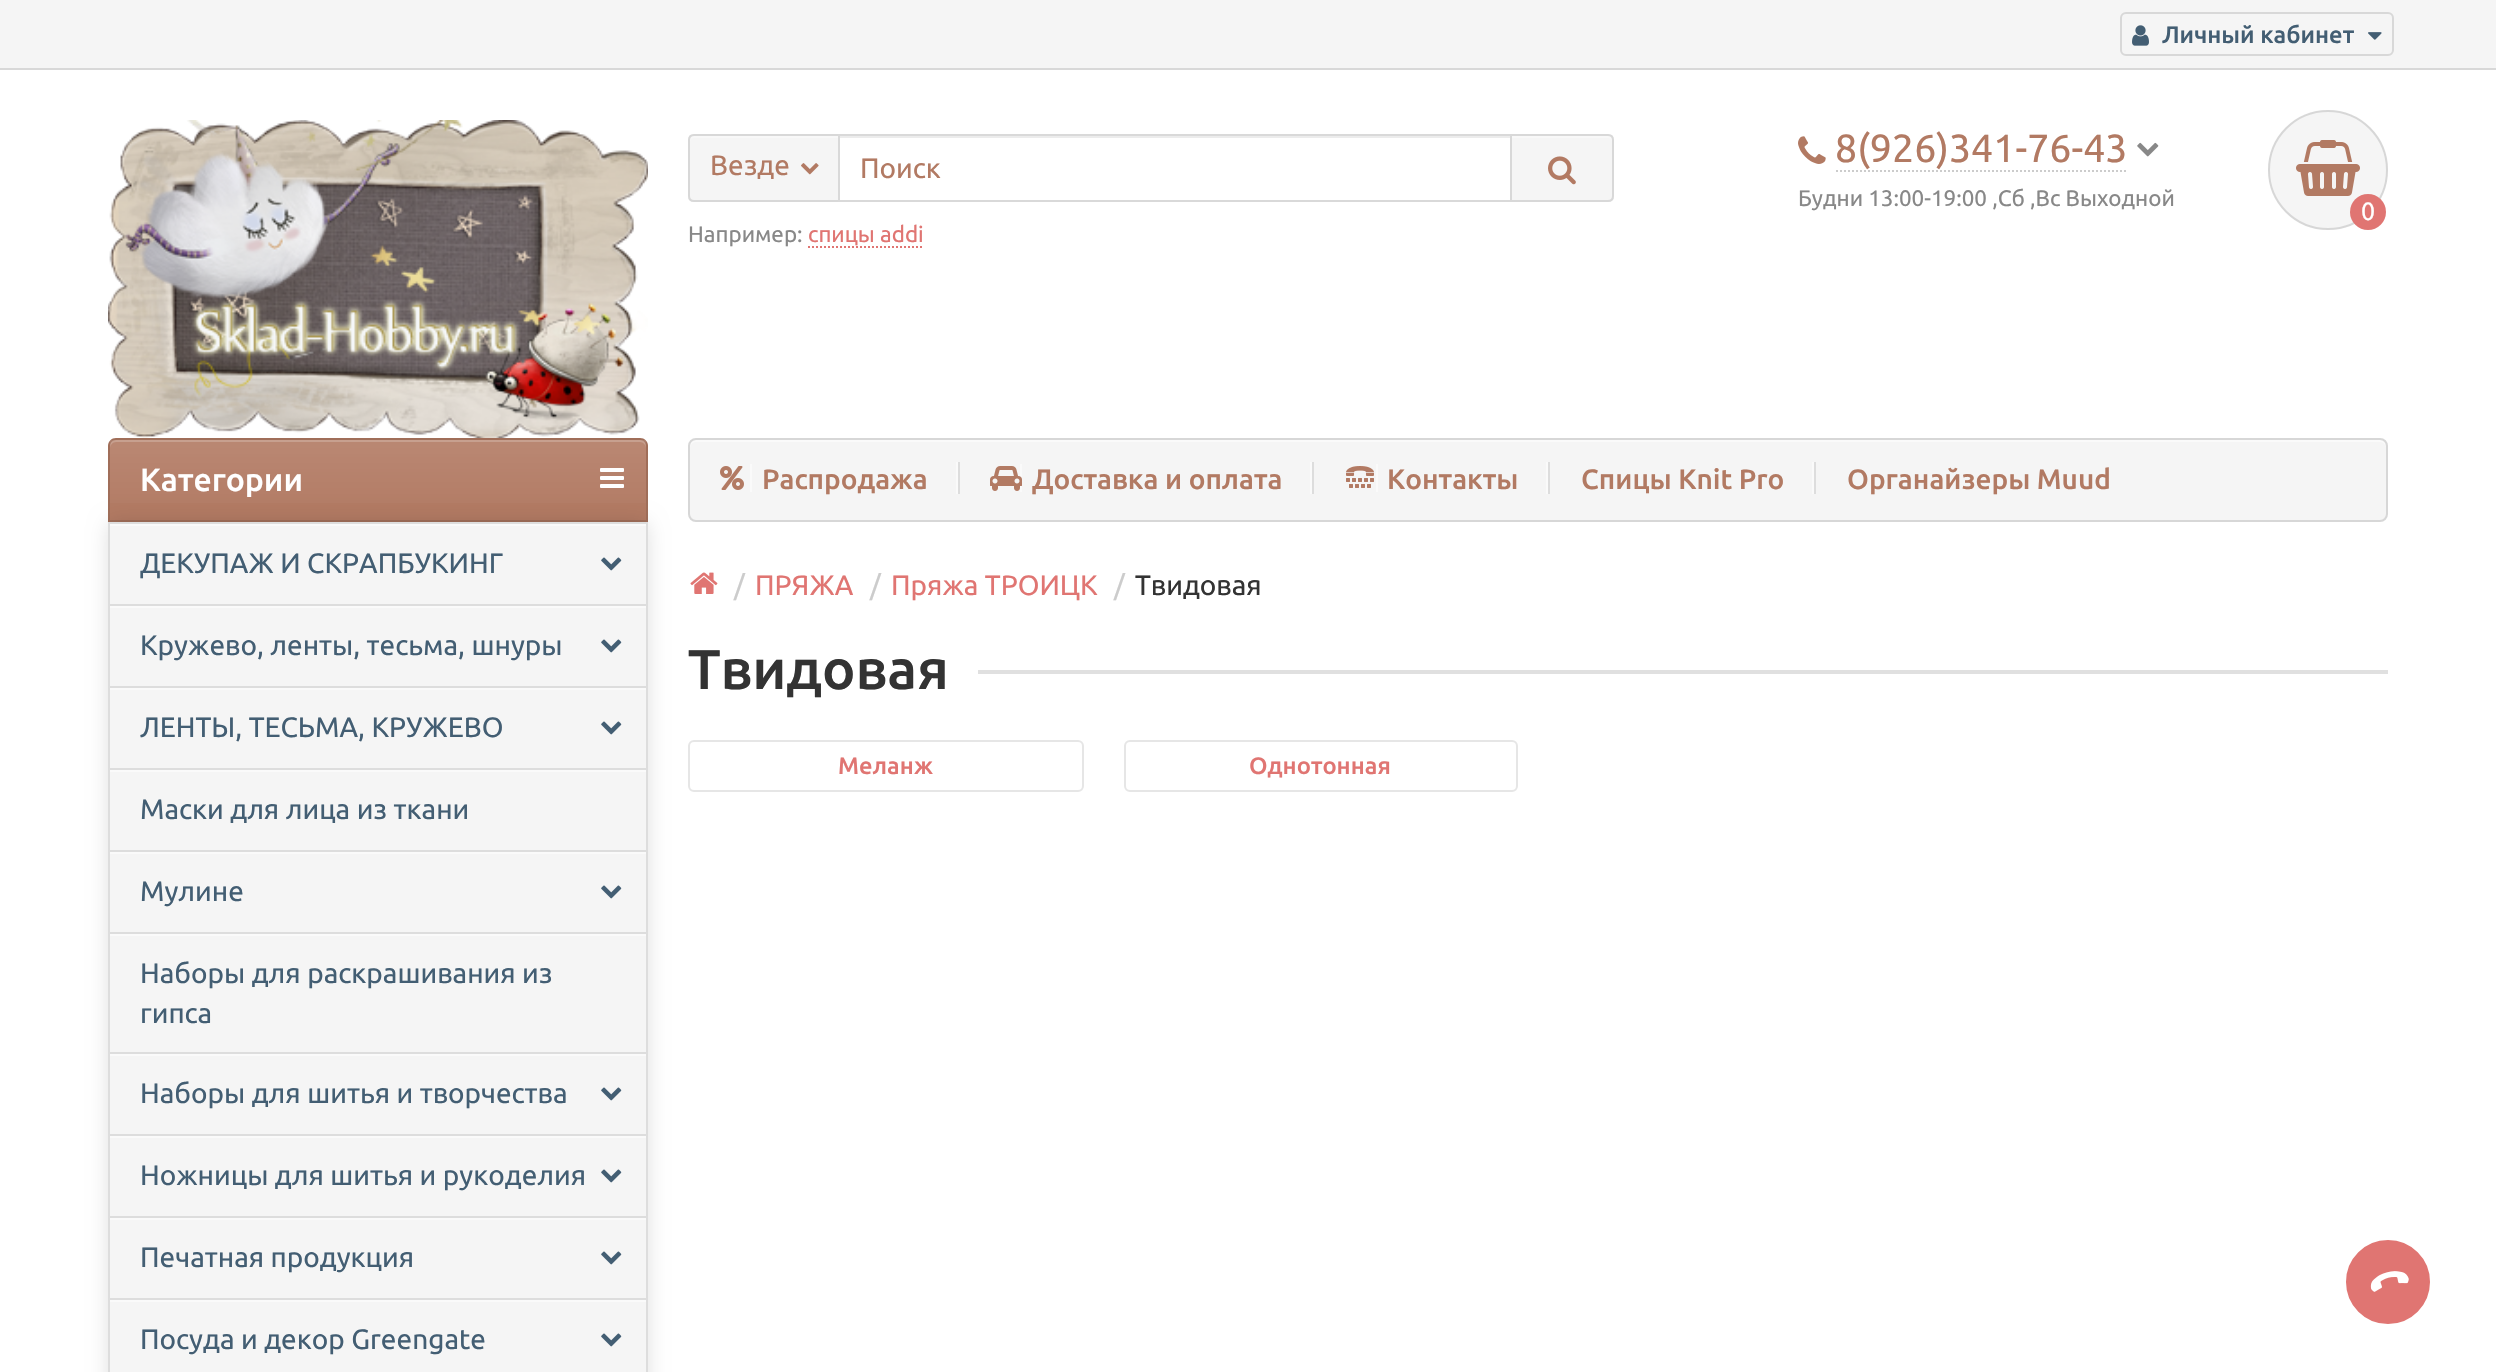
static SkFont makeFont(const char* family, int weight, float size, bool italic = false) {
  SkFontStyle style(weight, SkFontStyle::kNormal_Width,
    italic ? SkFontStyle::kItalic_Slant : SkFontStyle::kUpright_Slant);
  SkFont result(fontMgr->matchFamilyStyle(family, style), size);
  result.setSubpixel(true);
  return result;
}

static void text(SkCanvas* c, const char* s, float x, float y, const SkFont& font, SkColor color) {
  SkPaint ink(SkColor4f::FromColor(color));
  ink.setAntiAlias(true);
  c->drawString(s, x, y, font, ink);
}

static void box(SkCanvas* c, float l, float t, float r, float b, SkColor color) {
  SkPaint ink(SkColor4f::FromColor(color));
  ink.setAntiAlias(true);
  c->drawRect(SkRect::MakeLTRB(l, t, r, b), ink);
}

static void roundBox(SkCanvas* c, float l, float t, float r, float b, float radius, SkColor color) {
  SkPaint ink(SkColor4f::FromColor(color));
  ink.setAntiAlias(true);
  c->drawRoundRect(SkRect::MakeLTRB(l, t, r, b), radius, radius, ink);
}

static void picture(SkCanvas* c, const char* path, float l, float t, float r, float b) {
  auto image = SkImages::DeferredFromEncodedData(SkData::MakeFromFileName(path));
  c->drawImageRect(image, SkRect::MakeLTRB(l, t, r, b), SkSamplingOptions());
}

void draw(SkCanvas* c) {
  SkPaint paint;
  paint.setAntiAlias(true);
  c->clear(0xffffffff);
  box(c, 0, 0, 2496, 68, 0xfff5f5f5);
  box(c, 0, 68, 2496, 70, 0xffd8d8d8);
  paint.setStyle(SkPaint::kStroke_Style);
  paint.setStrokeWidth(2);
  paint.setColor(0xffd8d8d8);
  c->drawRoundRect(SkRect::MakeLTRB(2121, 13, 2393, 55), 5, 5, paint);
  picture(c, "img_01.png", 2132, 25, 2149, 46);
  SkFont face1 = makeFont("Ubuntu", 500, 23.75f);
  text(c, "Личный кабинет", 2162, 43, face1, 0xff435e73);
  picture(c, "img_02.png", 2368, 32, 2382, 40);
  picture(c, "img_03.png", 108, 120, 648, 438);
  paint.setStyle(SkPaint::kFill_Style);
  paint.setColor(0xfff5f5f5);
  c->drawPath(SkPathBuilder().moveTo(694, 134).lineTo(842, 134).lineTo(842, 202).lineTo(694, 202).cubicTo(690.5f, 202, 688, 199.5f, 688, 196).lineTo(688, 140).cubicTo(688, 136.5f, 690.5f, 134, 694, 134).close().detach(), paint);
  paint.setColor(0xfff8f8f8);
  c->drawPath(SkPathBuilder().moveTo(694, 138).lineTo(840, 138).lineTo(840, 136).lineTo(694, 136).cubicTo(692, 136, 690, 138, 690, 140).lineTo(690, 142).cubicTo(690, 140, 692, 138, 694, 138).close().detach(), paint);
  paint.setStyle(SkPaint::kStroke_Style);
  paint.setColor(0xffd8d8d8);
  c->drawPath(SkPathBuilder().moveTo(694, 135).lineTo(841, 135).lineTo(841, 201).lineTo(694, 201).cubicTo(691, 201, 689, 199, 689, 196).lineTo(689, 140).cubicTo(689, 137, 691, 135, 694, 135).close().detach(), paint);
  SkFont face2 = makeFont("Ubuntu", 400, 28);
  text(c, "Везде", 710, 175, face2, 0xffb27a63);
  picture(c, "img_04.png", 801, 163, 819, 175);
  box(c, 840, 138, 842, 200, 0xffffffff);
  box(c, 840, 136, 1510, 138, 0xffececec);
  paint.setColor(0xffd9d9d9);
  c->drawRect(SkRect::MakeLTRB(839, 135, 1511, 201), paint);
  text(c, "Поиск", 860, 178, face2, 0xffb27a63);
  paint.setStyle(SkPaint::kFill_Style);
  paint.setColor(0xfff5f5f5);
  c->drawPath(SkPathBuilder().moveTo(1510, 134).lineTo(1608, 134).cubicTo(1611.5f, 134, 1614, 136.5f, 1614, 140).lineTo(1614, 196).cubicTo(1614, 199.5f, 1611.5f, 202, 1608, 202).lineTo(1510, 202).close().detach(), paint);
  paint.setColor(0xfff8f8f8);
  c->drawPath(SkPathBuilder().moveTo(1512, 138).lineTo(1608, 138).cubicTo(1610, 138, 1612, 140, 1612, 142).lineTo(1612, 140).cubicTo(1612, 138, 1610, 136, 1608, 136).lineTo(1512, 136).close().detach(), paint);
  paint.setStyle(SkPaint::kStroke_Style);
  paint.setColor(0xffd8d8d8);
  c->drawPath(SkPathBuilder().moveTo(1511, 135).lineTo(1608, 135).cubicTo(1611, 135, 1613, 137, 1613, 140).lineTo(1613, 196).cubicTo(1613, 199, 1611, 201, 1608, 201).lineTo(1511, 201).close().detach(), paint);
  picture(c, "img_05.png", 1548, 156, 1576, 185);
  SkFont face3 = makeFont("Ubuntu", 400, 22.4f);
  text(c, "Например:", 688, 242, face3, 0xff888888);
  text(c, "спицы addi", 808, 242, face3, 0xffe07572);
  paint.setColor(0xffe07572);
  paint.setPathEffect(SkDashPathEffect::Make({{2, 2}}, 0));
  c->drawPath(SkPathBuilder().moveTo(808, 247).lineTo(924, 247).detach(), paint);
  paint.setPathEffect(nullptr);
  picture(c, "img_06.png", 1798, 136, 1826, 164);
  SkFont face4 = makeFont("Ubuntu", 400, 39.25f);
  text(c, "8(926)341-76-43", 1835, 162, face4, 0xffb27a63);
  paint.setColor(0xffcccccc);
  paint.setPathEffect(SkDashPathEffect::Make({{2, 2}}, 0));
  c->drawPath(SkPathBuilder().moveTo(1836, 171).lineTo(2128, 171).detach(), paint);
  paint.setPathEffect(nullptr);
  picture(c, "img_07.png", 2137, 142, 2159, 157);
  text(c, "Будни 13:00-19:00 ,Сб ,Вс Выходной", 1798, 206, face3, 0xff888888);
  paint.setStyle(SkPaint::kFill_Style);
  paint.setColor(0xfff5f5f5);
  c->drawCircle(2328, 170, 60, paint);
  paint.setStyle(SkPaint::kStroke_Style);
  paint.setColor(0x1f000000);
  c->drawCircle(2328, 170, 59, paint);
  picture(c, "img_08.png", 2296, 140, 2360, 196);
  paint.setStyle(SkPaint::kFill_Style);
  paint.setColor(0xffe07572);
  c->drawCircle(2368, 212, 18, paint);
  SkFont face5 = makeFont("Ubuntu", 400, 25);
  text(c, "0", 2361, 220, face5, 0xffffffff);
  paint.setColor(0xffb27a63);
  c->drawPath(SkPathBuilder().moveTo(116, 438).lineTo(640, 438).cubicTo(644.5f, 438, 648, 441.5f, 648, 446).lineTo(648, 522).lineTo(108, 522).lineTo(108, 446).cubicTo(108, 441.5f, 111.5f, 438, 116, 438).close().detach(), paint);
  paint.setColor(0xffc19582);
  c->drawPath(SkPathBuilder().moveTo(116, 442).lineTo(640, 442).cubicTo(643, 442, 646, 445, 646, 448).cubicTo(646, 444, 645, 440, 640, 440).lineTo(116, 440).cubicTo(111, 440, 110, 444, 110, 448).cubicTo(110, 445, 113, 442, 116, 442).close().detach(), paint);
  paint.setStyle(SkPaint::kStroke_Style);
  paint.setColor(0x1a000000);
  c->drawPath(SkPathBuilder().moveTo(116, 439).lineTo(640, 439).cubicTo(644, 439, 647, 442, 647, 446).lineTo(647, 521).lineTo(109, 521).lineTo(109, 446).cubicTo(109, 442, 112, 439, 116, 439).close().detach(), paint);
  paint.setStyle(SkPaint::kFill_Style);
  {
    const SkColor colors[] = {0x1affffff, 0x00ffffff};
    const float stops[] = {0, 1};
    const SkPoint ends[] = {{378, 440}, {378, 520}};
    paint.setShader(SkGradientShader::MakeLinear(ends, colors, stops, 2, SkTileMode::kClamp));
    paint.setAlpha(255);
  }
  c->drawRect(SkRect::MakeLTRB(110, 440, 646, 503), paint);
  SkFont face6 = makeFont("Ubuntu", 500, 32);
  text(c, "Категории", 140, 491, face6, 0xffffffff);
  picture(c, "img_09.png", 600, 468, 624, 488);
  paint.setShader(nullptr);
  paint.setColor(0x1f000000);
  paint.setMaskFilter(SkMaskFilter::MakeBlur(kNormal_SkBlurStyle, 10));
  c->drawRoundRect(SkRect::MakeLTRB(108, 522, 648, 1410), 8, 8, paint);
  paint.setMaskFilter(nullptr);
  box(c, 110, 526, 646, 1372, 0xfff5f5f5);
  paint.setColor(0xffdddddd);
  c->drawPath(SkPathBuilder(SkPathFillType::kEvenOdd).moveTo(108, 522).lineTo(648, 522).lineTo(648, 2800).cubicTo(648, 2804, 644, 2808, 640, 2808).lineTo(116, 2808).cubicTo(112, 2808, 108, 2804, 108, 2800).close().moveTo(110, 522).lineTo(646, 522).lineTo(646, 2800).cubicTo(646, 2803, 643, 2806, 640, 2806).lineTo(116, 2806).cubicTo(113, 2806, 110, 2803, 110, 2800).close().detach(), paint);
  box(c, 110, 524, 646, 526, 0xfffafafa);
  box(c, 110, 522, 646, 524, 0xffdddddd);
  text(c, "ДЕКУПАЖ И СКРАПБУКИНГ", 140, 573, face2, 0xff435e73);
  picture(c, "img_10.png", 601, 557, 622, 571);
  box(c, 110, 606, 646, 608, 0xfffafafa);
  box(c, 110, 604, 646, 606, 0xffdddddd);
  text(c, "Кружево, ленты, тесьма, шнуры", 140, 655, face2, 0xff435e73);
  picture(c, "img_10.png", 601, 639, 622, 653);
  box(c, 110, 688, 646, 690, 0xfffafafa);
  box(c, 110, 686, 646, 688, 0xffdddddd);
  text(c, "ЛЕНТЫ, ТЕСЬМА, КРУЖЕВО", 140, 737, face2, 0xff435e73);
  picture(c, "img_10.png", 601, 721, 622, 735);
  box(c, 110, 770, 646, 772, 0xfffafafa);
  box(c, 110, 768, 646, 770, 0xffdddddd);
  text(c, "Маски для лица из ткани", 140, 819, face2, 0xff435e73);
  box(c, 110, 852, 646, 854, 0xfffafafa);
  box(c, 110, 850, 646, 852, 0xffdddddd);
  text(c, "Мулине", 140, 901, face2, 0xff435e73);
  picture(c, "img_10.png", 601, 885, 622, 899);
  box(c, 110, 934, 646, 936, 0xfffafafa);
  box(c, 110, 932, 646, 934, 0xffdddddd);
  text(c, "Наборы для раскрашивания из", 140, 983, face2, 0xff435e73);
  text(c, "гипса", 140, 1023, face2, 0xff435e73);
  box(c, 110, 1054, 646, 1056, 0xfffafafa);
  box(c, 110, 1052, 646, 1054, 0xffdddddd);
  text(c, "Наборы для шитья и творчества", 140, 1103, face2, 0xff435e73);
  picture(c, "img_10.png", 601, 1087, 622, 1101);
  box(c, 110, 1136, 646, 1138, 0xfffafafa);
  box(c, 110, 1134, 646, 1136, 0xffdddddd);
  text(c, "Ножницы для шитья и рукоделия", 140, 1185, face2, 0xff435e73);
  picture(c, "img_10.png", 601, 1169, 622, 1183);
  box(c, 110, 1218, 646, 1220, 0xfffafafa);
  box(c, 110, 1216, 646, 1218, 0xffdddddd);
  text(c, "Печатная продукция", 140, 1267, face2, 0xff435e73);
  picture(c, "img_10.png", 601, 1251, 622, 1265);
  box(c, 110, 1300, 646, 1302, 0xfffafafa);
  box(c, 110, 1298, 646, 1300, 0xffdddddd);
  text(c, "Посуда и декор Greengate", 140, 1349, face2, 0xff435e73);
  picture(c, "img_10.png", 601, 1333, 622, 1347);
  roundBox(c, 688, 438, 2388, 522, 8, 0xfff5f5f5);
  paint.setColor(0xfffafafa);
  c->drawPath(SkPathBuilder().moveTo(696, 442).lineTo(2380, 442).cubicTo(2383, 442, 2386, 445, 2386, 448).cubicTo(2386, 444, 2385, 440, 2380, 440).lineTo(696, 440).cubicTo(691, 440, 690, 444, 690, 448).cubicTo(690, 445, 693, 442, 696, 442).close().detach(), paint);
  paint.setStyle(SkPaint::kStroke_Style);
  paint.setColor(0x1f000000);
  c->drawRoundRect(SkRect::MakeLTRB(689, 439, 2387, 521), 7, 7, paint);
  box(c, 750, 464, 752, 492, 0xfffafafa);
  box(c, 956, 462, 958, 494, 0xfffafafa);
  box(c, 958, 462, 960, 494, 0xffdddddd);
  picture(c, "img_11.png", 720, 466, 744, 490);
  SkFont face7 = makeFont("Ubuntu", 500, 28);
  text(c, "Распродажа", 762, 489, face7, 0xffb27a63);
  box(c, 1020, 464, 1022, 492, 0xfffafafa);
  box(c, 1310, 462, 1312, 494, 0xfffafafa);
  box(c, 1312, 462, 1314, 494, 0xffdddddd);
  picture(c, "img_12.png", 990, 466, 1022, 491);
  text(c, "Доставка и оплата", 1032, 489, face7, 0xffb27a63);
  box(c, 1376, 464, 1378, 492, 0xfffafafa);
  box(c, 1546, 462, 1548, 494, 0xfffafafa);
  box(c, 1548, 462, 1550, 494, 0xffdddddd);
  picture(c, "img_13.png", 1346, 466, 1374, 488);
  text(c, "Контакты", 1387, 489, face7, 0xffb27a63);
  text(c, "Спицы Knit Pro", 1581, 489, face7, 0xffb27a63);
  box(c, 1812, 462, 1814, 494, 0xfffafafa);
  box(c, 1814, 462, 1816, 494, 0xffdddddd);
  text(c, "Органайзеры Muud", 1847, 489, face7, 0xffb27a63);
  picture(c, "img_14.png", 690, 572, 718, 594);
  text(c, "/", 734, 595, face2, 0xffcccccc);
  text(c, "ПРЯЖА", 755, 595, face2, 0xffe07572);
  text(c, "/", 870, 595, face2, 0xffcccccc);
  text(c, "Пряжа ТРОИЦК", 891, 595, face2, 0xffe07572);
  text(c, "/", 1114, 595, face2, 0xffcccccc);
  text(c, "Твидовая", 1135, 595, face2, 0xff333333);
  SkFont face8 = makeFont("Ubuntu", 500, 56);
  text(c, "Твидовая", 688, 689, face8, 0xff333333);
  box(c, 978, 670, 2388, 674, 0xffe0e0e0);
  paint.setColor(0xffe6e6e6);
  c->drawRoundRect(SkRect::MakeLTRB(689, 741, 1083, 791), 5, 5, paint);
  text(c, "Меланж", 838, 774, face1, 0xffe07572);
  c->drawRoundRect(SkRect::MakeLTRB(1125, 741, 1517, 791), 5, 5, paint);
  text(c, "Однотонная", 1249, 774, face1, 0xffe07572);
  paint.setStyle(SkPaint::kFill_Style);
  paint.setColor(0xffe07572);
  c->drawCircle(2388, 1282, 40, paint);
  picture(c, "img_15.png", 2370, 1271, 2409, 1292);
  paint.setStyle(SkPaint::kStroke_Style);
  paint.setStrokeWidth(4);
  c->drawCircle(2388, 1282, 40, paint);
}
